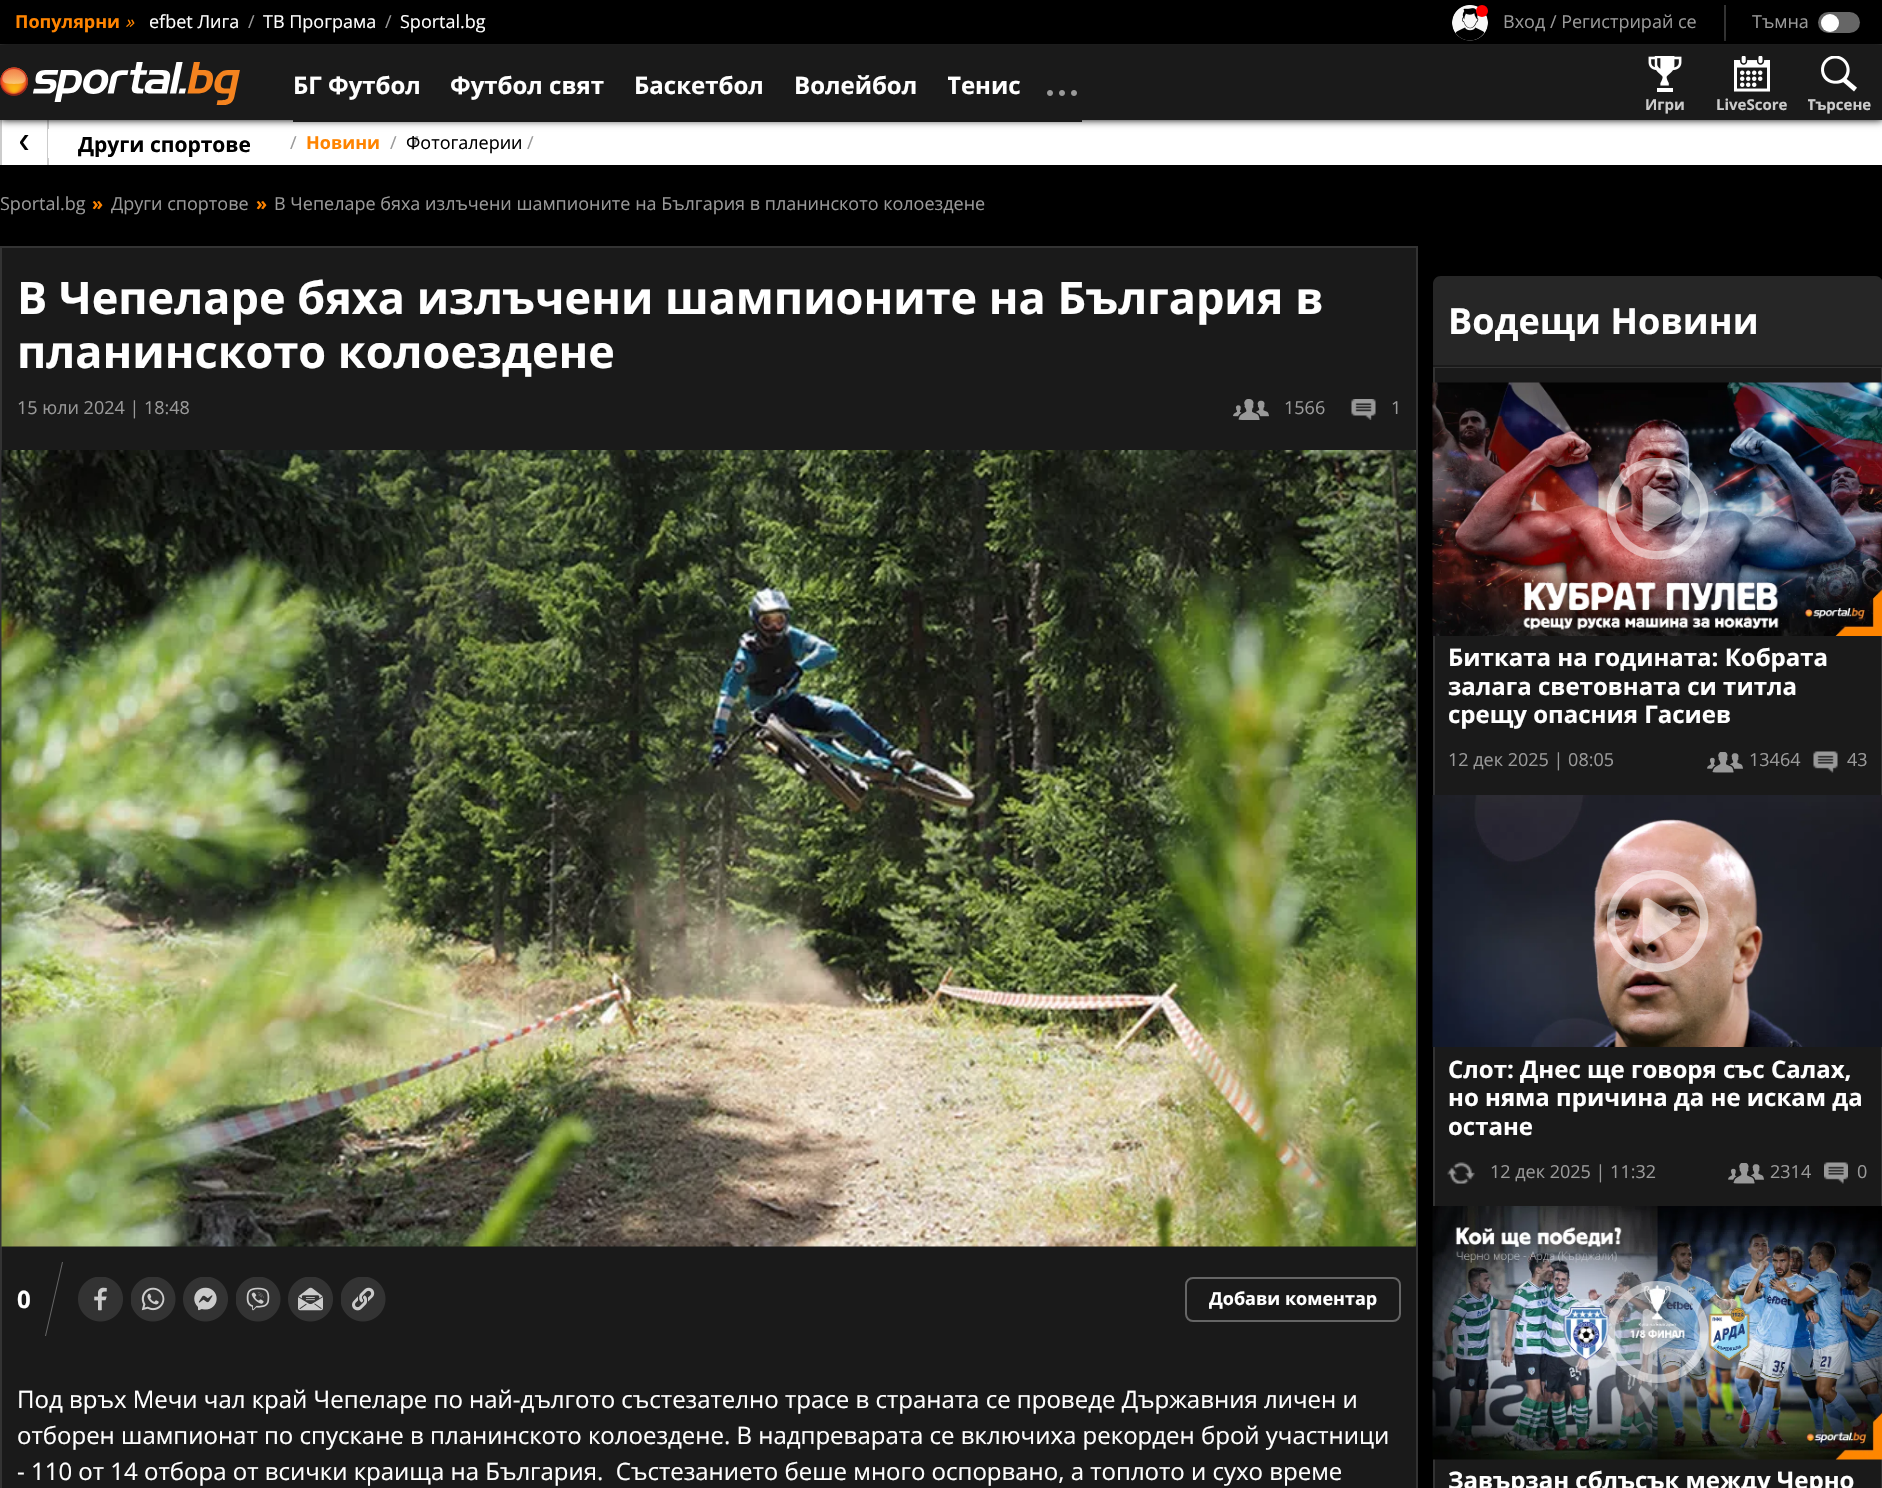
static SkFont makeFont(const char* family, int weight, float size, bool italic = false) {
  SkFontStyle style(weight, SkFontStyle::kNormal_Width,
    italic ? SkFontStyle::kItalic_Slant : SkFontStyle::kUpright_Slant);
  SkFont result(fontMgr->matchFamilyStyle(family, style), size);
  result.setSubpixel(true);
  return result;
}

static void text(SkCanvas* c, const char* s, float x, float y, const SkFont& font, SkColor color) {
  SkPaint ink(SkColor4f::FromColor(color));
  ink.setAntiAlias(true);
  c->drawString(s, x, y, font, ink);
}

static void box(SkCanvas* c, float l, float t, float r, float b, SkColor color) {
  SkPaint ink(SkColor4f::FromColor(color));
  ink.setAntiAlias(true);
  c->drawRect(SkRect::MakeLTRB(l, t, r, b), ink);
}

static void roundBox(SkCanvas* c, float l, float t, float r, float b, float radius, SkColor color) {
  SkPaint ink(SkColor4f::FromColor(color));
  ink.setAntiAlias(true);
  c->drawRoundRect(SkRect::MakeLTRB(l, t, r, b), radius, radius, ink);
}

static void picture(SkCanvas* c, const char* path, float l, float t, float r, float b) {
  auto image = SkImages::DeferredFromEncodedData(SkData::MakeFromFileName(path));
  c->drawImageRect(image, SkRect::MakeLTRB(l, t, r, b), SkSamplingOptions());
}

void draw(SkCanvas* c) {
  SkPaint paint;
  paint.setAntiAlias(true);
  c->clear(0xff000000);
  box(c, 0, 44, 1882, 45, 0xff333333);
  SkFont face1 = makeFont("Open Sans", 700, 18);
  text(c, "Популярни", 15, 28, face1, 0xffff8400);
  SkFont face2 = makeFont("Open Sans", 400, 18, true);
  text(c, "»", 125, 28, face2, 0xffff8400);
  SkFont face3 = makeFont("Open Sans", 400, 18);
  text(c, "efbet Лига", 149, 28, face3, 0xffffffff);
  text(c, "/", 248, 28, face3, 0xff999999);
  text(c, "ТВ Програма", 263, 28, face3, 0xffffffff);
  text(c, "/", 385, 28, face3, 0xff999999);
  text(c, "Sportal.bg", 400, 28, face3, 0xffffffff);
  picture(c, "img_01.png", 1452, 5, 1488, 41);
  paint.setColor(0xffff0000);
  c->drawCircle(1482, 11, 6, paint);
  text(c, "Вход / Регистрирай се", 1503, 28, face3, 0xff999999);
  box(c, 1724, 5, 1726, 41, 0xff333333);
  text(c, "Тъмна", 1752, 28, face3, 0xff999999);
  roundBox(c, 1818, 12, 1860, 33, 10.5f, 0xff666666);
  paint.setColor(0xffffffff);
  c->drawCircle(1830, 23, 9, paint);
  box(c, 2, 120, 1882, 165, 0xffffffff);
  box(c, 47, 120, 49, 165, 0xffcccccc);
  box(c, 0, 120, 2, 165, 0xffcccccc);
  box(c, 48, 129, 49, 158, 0xffffffff);
  paint.setColor(0xfc000000);
  paint.setMaskFilter(SkMaskFilter::MakeBlur(kNormal_SkBlurStyle, 4));
  c->drawRect(SkRect::MakeLTRB(0, 45, 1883, 120), paint);
  paint.setMaskFilter(nullptr);
  box(c, 0, 45, 1882, 120, 0xff1a1a1a);
  picture(c, "img_02.png", 0, 62, 240, 105);
  box(c, 293, 120, 1082, 122, 0xff1a1a1a);
  SkFont face4 = makeFont("Open Sans", 700, 24);
  text(c, "БГ Футбол", 293, 94, face4, 0xffffffff);
  text(c, "Футбол свят", 450, 94, face4, 0xffffffff);
  text(c, "Баскетбол", 634, 94, face4, 0xffffffff);
  text(c, "Волейбол", 794, 94, face4, 0xffffffff);
  c->save();
  c->clipRect(SkRect::MakeLTRB(948, 50, 1022, 122));
  text(c, "Тенис", 947, 94, face4, 0xffffffff);
  c->restore();
  picture(c, "img_03.png", 1047, 90, 1077, 96);
  picture(c, "img_04.png", 1648, 56, 1682, 92);
  SkFont face5 = makeFont("Open Sans", 700, 15);
  text(c, "Игри", 1645, 110, face5, 0xffcccccc);
  picture(c, "img_05.png", 1734, 56, 1770, 92);
  text(c, "LiveScore", 1716, 110, face5, 0xffcccccc);
  picture(c, "img_06.png", 1821, 56, 1857, 92);
  c->save();
  c->clipRect(SkRect::MakeLTRB(1808, 96, 1871, 116));
  text(c, "Търсене", 1807, 110, face5, 0xffcccccc);
  c->restore();
  picture(c, "img_07.png", 20, 135, 29, 150);
  SkFont face6 = makeFont("Open Sans", 700, 21);
  text(c, "Други спортове", 78, 152, face6, 0xff000000);
  text(c, "/", 290, 149, face3, 0xff999999);
  text(c, "Новини", 306, 149, face1, 0xffff8400);
  text(c, "/", 411, 149, face1, 0xff999999);
  text(c, "/", 390, 149, face3, 0xff999999);
  text(c, "Фотогалерии", 406, 149, face3, 0xff000000);
  text(c, "/", 527, 149, face3, 0xff999999);
  text(c, "Sportal.bg", 0, 210, face3, 0xff999999);
  text(c, "»", 92, 210, face1, 0xffff8400);
  text(c, "Други спортове", 111, 210, face3, 0xff999999);
  text(c, "»", 256, 210, face1, 0xffff8400);
  text(c, "В Чепеларе бяха излъчени шампионите на България в планинското колоездене", 274, 210, face3, 0xff999999);
  paint.setColor(0xff1a1a1a);
  c->drawRect(SkRect::MakeLTRB(1, 247, 1417, 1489), paint);
  paint.setStyle(SkPaint::kStroke_Style);
  paint.setStrokeWidth(2);
  paint.setColor(0xff333333);
  c->drawRect(SkRect::MakeLTRB(1, 247, 1417, 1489), paint);
  SkFont face7 = makeFont("Open Sans", 700, 45);
  text(c, "В Чепеларе бяха излъчени шампионите на България в", 17, 314, face7, 0xffffffff);
  text(c, "планинското колоездене", 17, 368, face7, 0xffffffff);
  text(c, "15 юли 2024 | 18:48", 17, 414, face3, 0xff999999);
  picture(c, "img_08.png", 1233, 399, 1269, 420);
  text(c, "1566", 1284, 414, face3, 0xff999999);
  picture(c, "img_09.png", 1351, 399, 1376, 420);
  text(c, "1", 1391, 414, face3, 0xff999999);
  picture(c, "img_10.png", 1, 450, 1416, 1247);
  text(c, "0", 17, 1308, face4, 0xffffffff);
  paint.setStyle(SkPaint::kFill_Style);
  paint.setColor(0xff666666);
  c->drawPath(SkPathBuilder(SkPathFillType::kEvenOdd).moveTo(63, 1262).lineTo(46, 1336).lineTo(45, 1336).lineTo(62, 1262).close().detach(), paint);
  picture(c, "img_11.png", 78, 1277, 123, 1322);
  picture(c, "img_12.png", 131, 1277, 176, 1322);
  picture(c, "img_13.png", 183, 1277, 228, 1322);
  picture(c, "img_14.png", 236, 1277, 281, 1322);
  picture(c, "img_15.png", 288, 1277, 333, 1322);
  picture(c, "img_16.png", 341, 1277, 386, 1322);
  paint.setStyle(SkPaint::kStroke_Style);
  c->drawRoundRect(SkRect::MakeLTRB(1186, 1278, 1400, 1321), 7, 7, paint);
  text(c, "Добави коментар", 1209, 1305, face1, 0xffffffff);
  SkFont face8 = makeFont("Open Sans", 400, 24);
  text(c, "Под връх Мечи чал край Чепеларе по най-дългото състезателно трасе в страната се проведе Държавния личен и", 17, 1408, face8, 0xffffffff);
  text(c, "отборен шампионат по спускане в планинското колоездене. В надпреварата се включиха рекорден брой участници", 17, 1444, face8, 0xffffffff);
  text(c, "- 110 от 14 отбора от всички краища на България.  Състезанието беше много оспорвано, а топлото и сухо време", 17, 1480, face8, 0xffffffff);
  paint.setStyle(SkPaint::kFill_Style);
  paint.setColor(0xff262626);
  c->drawPath(SkPathBuilder().moveTo(1441, 276).lineTo(1875, 276).cubicTo(1879.5f, 276, 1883, 279.5f, 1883, 284).lineTo(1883, 366).lineTo(1433, 366).lineTo(1433, 284).cubicTo(1433, 279.5f, 1436.5f, 276, 1441, 276).close().detach(), paint);
  paint.setColor(0xff1a1a1a);
  c->drawRect(SkRect::MakeLTRB(1434, 367, 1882, 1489), paint);
  paint.setStyle(SkPaint::kStroke_Style);
  paint.setColor(0xff333333);
  c->drawRect(SkRect::MakeLTRB(1434, 367, 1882, 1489), paint);
  box(c, 1433, 365, 1882, 367, 0xff1a1a1a);
  SkFont face9 = makeFont("Open Sans", 700, 36);
  text(c, "Водещи Новини", 1448, 334, face9, 0xffffffff);
  picture(c, "img_17.png", 1432, 382, 1882, 636);
  picture(c, "img_18.png", 1607, 458, 1709, 560);
  text(c, "Битката на годината: Кобрата", 1448, 666, face4, 0xffffffff);
  text(c, "залага световната си титла", 1448, 695, face4, 0xffffffff);
  text(c, "срещу опасния Гасиев", 1448, 723, face4, 0xffffffff);
  text(c, "12 дек 2025 | 08:05", 1448, 766, face3, 0xff999999);
  picture(c, "img_19.png", 1707, 752, 1743, 773);
  text(c, "13464", 1749, 766, face3, 0xff999999);
  picture(c, "img_20.png", 1813, 751, 1838, 773);
  text(c, "43", 1847, 766, face3, 0xff999999);
  picture(c, "img_21.png", 1432, 795, 1882, 1047);
  picture(c, "img_22.png", 1607, 870, 1709, 972);
  text(c, "Слот: Днес ще говоря със Салах,", 1448, 1078, face4, 0xffffffff);
  text(c, "но няма причина да не искам да", 1448, 1106, face4, 0xffffffff);
  text(c, "остане", 1448, 1135, face4, 0xffffffff);
  picture(c, "img_23.png", 1447, 1162, 1475, 1184);
  text(c, "12 дек 2025 | 11:32", 1490, 1178, face3, 0xff999999);
  picture(c, "img_19.png", 1728, 1163, 1764, 1184);
  text(c, "2314", 1770, 1178, face3, 0xff999999);
  picture(c, "img_24.png", 1824, 1162, 1848, 1184);
  text(c, "0", 1857, 1178, face3, 0xff999999);
  picture(c, "img_25.png", 1432, 1206, 1882, 1460);
  picture(c, "img_26.png", 1607, 1281, 1709, 1383);
  text(c, "Завързан сблъсък между Черно", 1448, 1489, face4, 0xffffffff);
}
